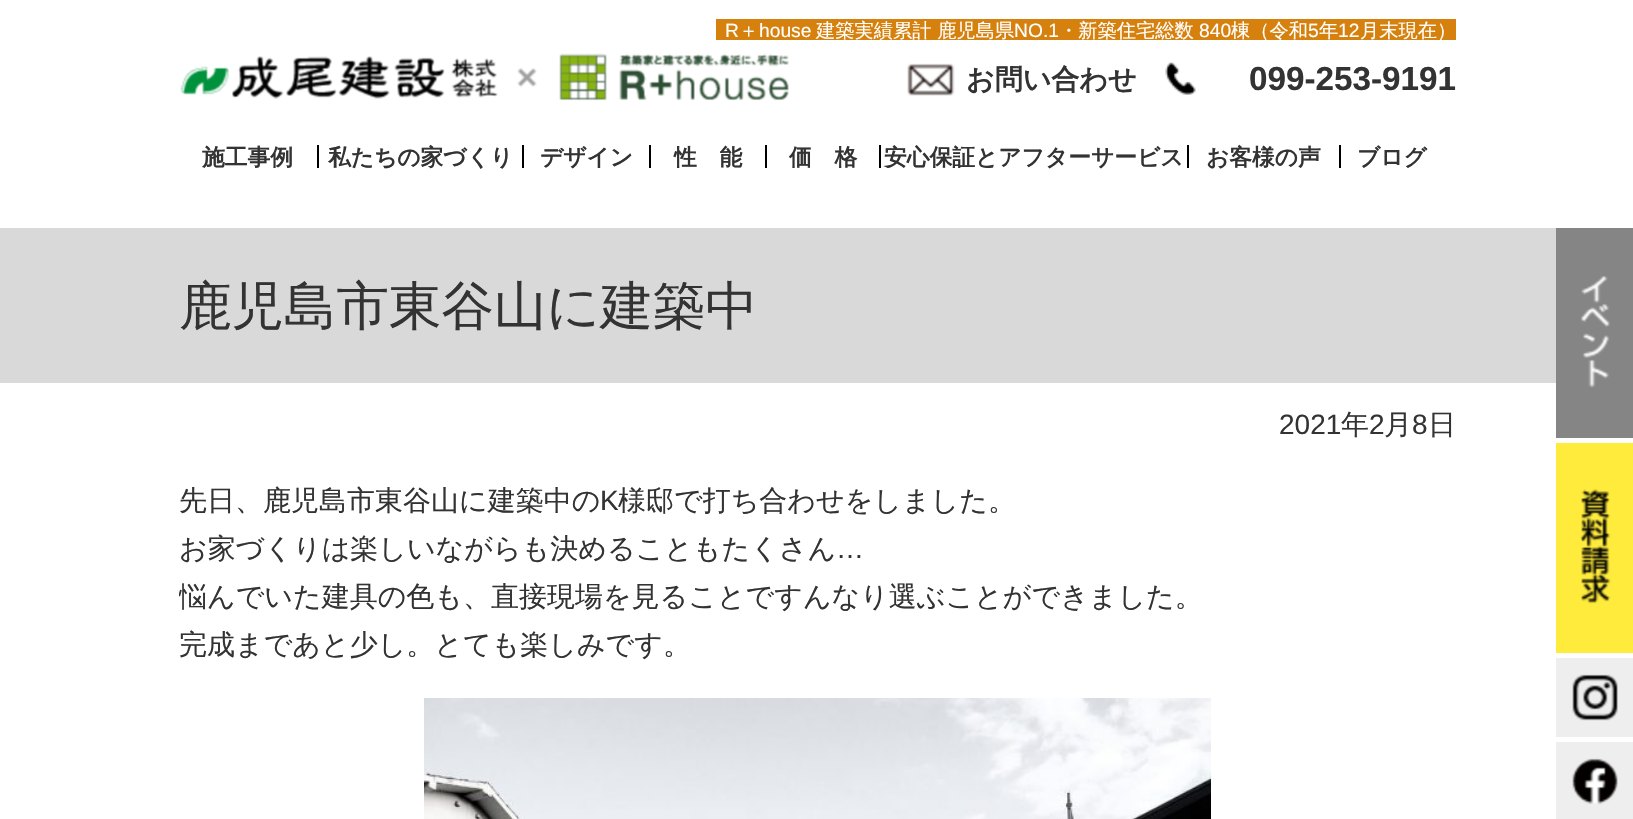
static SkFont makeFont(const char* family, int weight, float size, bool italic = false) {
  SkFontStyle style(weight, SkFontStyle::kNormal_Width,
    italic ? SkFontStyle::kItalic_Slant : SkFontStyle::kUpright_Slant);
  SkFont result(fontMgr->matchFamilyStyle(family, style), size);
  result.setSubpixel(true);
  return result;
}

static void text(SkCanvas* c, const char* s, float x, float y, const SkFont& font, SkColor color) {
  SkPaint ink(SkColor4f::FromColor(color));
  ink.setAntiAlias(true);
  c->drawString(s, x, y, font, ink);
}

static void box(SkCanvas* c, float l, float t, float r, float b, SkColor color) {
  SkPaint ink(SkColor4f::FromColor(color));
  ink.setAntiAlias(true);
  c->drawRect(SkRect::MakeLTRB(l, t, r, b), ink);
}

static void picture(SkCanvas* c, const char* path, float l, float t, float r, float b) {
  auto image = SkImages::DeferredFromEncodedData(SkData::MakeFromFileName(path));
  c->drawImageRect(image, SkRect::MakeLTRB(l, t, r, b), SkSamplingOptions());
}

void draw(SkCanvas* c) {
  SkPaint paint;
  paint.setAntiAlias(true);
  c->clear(0xffffffff);
  box(c, 716, 19, 1456, 40, 0xffd6810d);
  SkFont face1 = makeFont("Liberation Sans", 400, 19.25f);
  text(c, "R", 725, 37, face1, 0xffffffff);
  SkFont face2 = makeFont("WenQuanYi Zen Hei", 500, 19.25f);
  text(c, "＋", 739, 37, face2, 0xffffffff);
  text(c, "house", 759, 37, face1, 0xffffffff);
  text(c, "建築実績累計 鹿児島県", 816, 37, face2, 0xffffffff);
  text(c, "NO.1", 1014, 37, face1, 0xffffffff);
  text(c, "・新築住宅総数", 1059, 37, face2, 0xffffffff);
  text(c, "840", 1199, 37, face1, 0xffffffff);
  text(c, "棟（令和", 1231, 37, face2, 0xffffffff);
  text(c, "5", 1308, 37, face1, 0xffffffff);
  text(c, "年", 1319, 37, face2, 0xffffffff);
  text(c, "12", 1338, 37, face1, 0xffffffff);
  text(c, "月末現在）", 1360, 37, face2, 0xffffffff);
  picture(c, "img_01.png", 180, 53, 789, 101);
  picture(c, "img_02.png", 907, 63, 955, 96);
  SkFont face3 = makeFont("WenQuanYi Zen Hei", 700, 28);
  text(c, "お問い合わせ", 966, 89, face3, 0xff333333);
  picture(c, "img_03.png", 1165, 62, 1196, 95);
  SkFont face4 = makeFont("Liberation Sans", 700, 33.25f);
  text(c, "099-253-9191", 1249, 90, face4, 0xff333333);
  box(c, 317, 145, 319, 168, 0xff000000);
  SkFont face5 = makeFont("WenQuanYi Zen Hei", 700, 22.75f);
  text(c, "施工事例", 202, 165, face5, 0xff333333);
  box(c, 522, 145, 524, 168, 0xff000000);
  text(c, "私たちの家づくり", 328, 165, face5, 0xff333333);
  box(c, 649, 145, 651, 168, 0xff000000);
  text(c, "デザイン", 540, 165, face5, 0xff333333);
  box(c, 765, 145, 767, 168, 0xff000000);
  text(c, "性　能", 674, 165, face5, 0xff333333);
  box(c, 879, 145, 881, 168, 0xff000000);
  text(c, "価　格", 789, 165, face5, 0xff333333);
  box(c, 1187, 145, 1189, 168, 0xff000000);
  text(c, "安心保証とアフターサービス", 884, 165, face5, 0xff333333);
  box(c, 1339, 145, 1341, 168, 0xff000000);
  text(c, "お客様の声", 1206, 165, face5, 0xff333333);
  text(c, "ブログ", 1357, 165, face5, 0xff333333);
  box(c, 0, 228, 1556, 383, 0xffd9d9d9);
  SkFont face6 = makeFont("WenQuanYi Zen Hei", 500, 52.5f);
  text(c, "鹿児島市東谷山に建築中", 179, 324, face6, 0xff333333);
  SkFont face7 = makeFont("Liberation Sans", 400, 28);
  text(c, "2021", 1279, 434, face7, 0xff333333);
  SkFont face8 = makeFont("WenQuanYi Zen Hei", 500, 28);
  text(c, "年", 1341, 434, face8, 0xff333333);
  text(c, "2", 1369, 434, face7, 0xff333333);
  text(c, "月", 1384, 434, face8, 0xff333333);
  text(c, "8", 1412, 434, face7, 0xff333333);
  text(c, "日", 1428, 434, face8, 0xff333333);
  text(c, "先日、鹿児島市東谷山に建築中の", 179, 510, face8, 0xff333333);
  text(c, "K", 600, 510, face7, 0xff333333);
  text(c, "様邸で打ち合わせをしました。", 618, 510, face8, 0xff333333);
  text(c, "お家づくりは楽しいながらも決めることもたくさん", 179, 558, face8, 0xff333333);
  text(c, "…", 836, 558, face7, 0xff333333);
  c->save();
  c->clipRect(SkRect::MakeLTRB(179, 448, 1456, 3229));
  text(c, "悩んでいた建具の色も、直接現場を見ることですんなり選ぶことができました。", 179, 606, face8, 0xff333333);
  c->restore();
  text(c, "完成まであと少し。とても楽しみです。", 179, 654, face8, 0xff333333);
  picture(c, "img_04.png", 424, 698, 1211, 819);
  box(c, 1556, 228, 1633, 438, 0xff858585);
  picture(c, "img_05.png", 1580, 276, 1610, 388);
  box(c, 1556, 443, 1633, 653, 0xffffeb3b);
  picture(c, "img_06.png", 1580, 489, 1611, 604);
  box(c, 1556, 658, 1633, 737, 0xffeeeeee);
  picture(c, "img_07.png", 1572, 674, 1618, 721);
  box(c, 1556, 742, 1633, 819, 0xffeeeeee);
  picture(c, "img_08.png", 1572, 758, 1618, 805);
}
